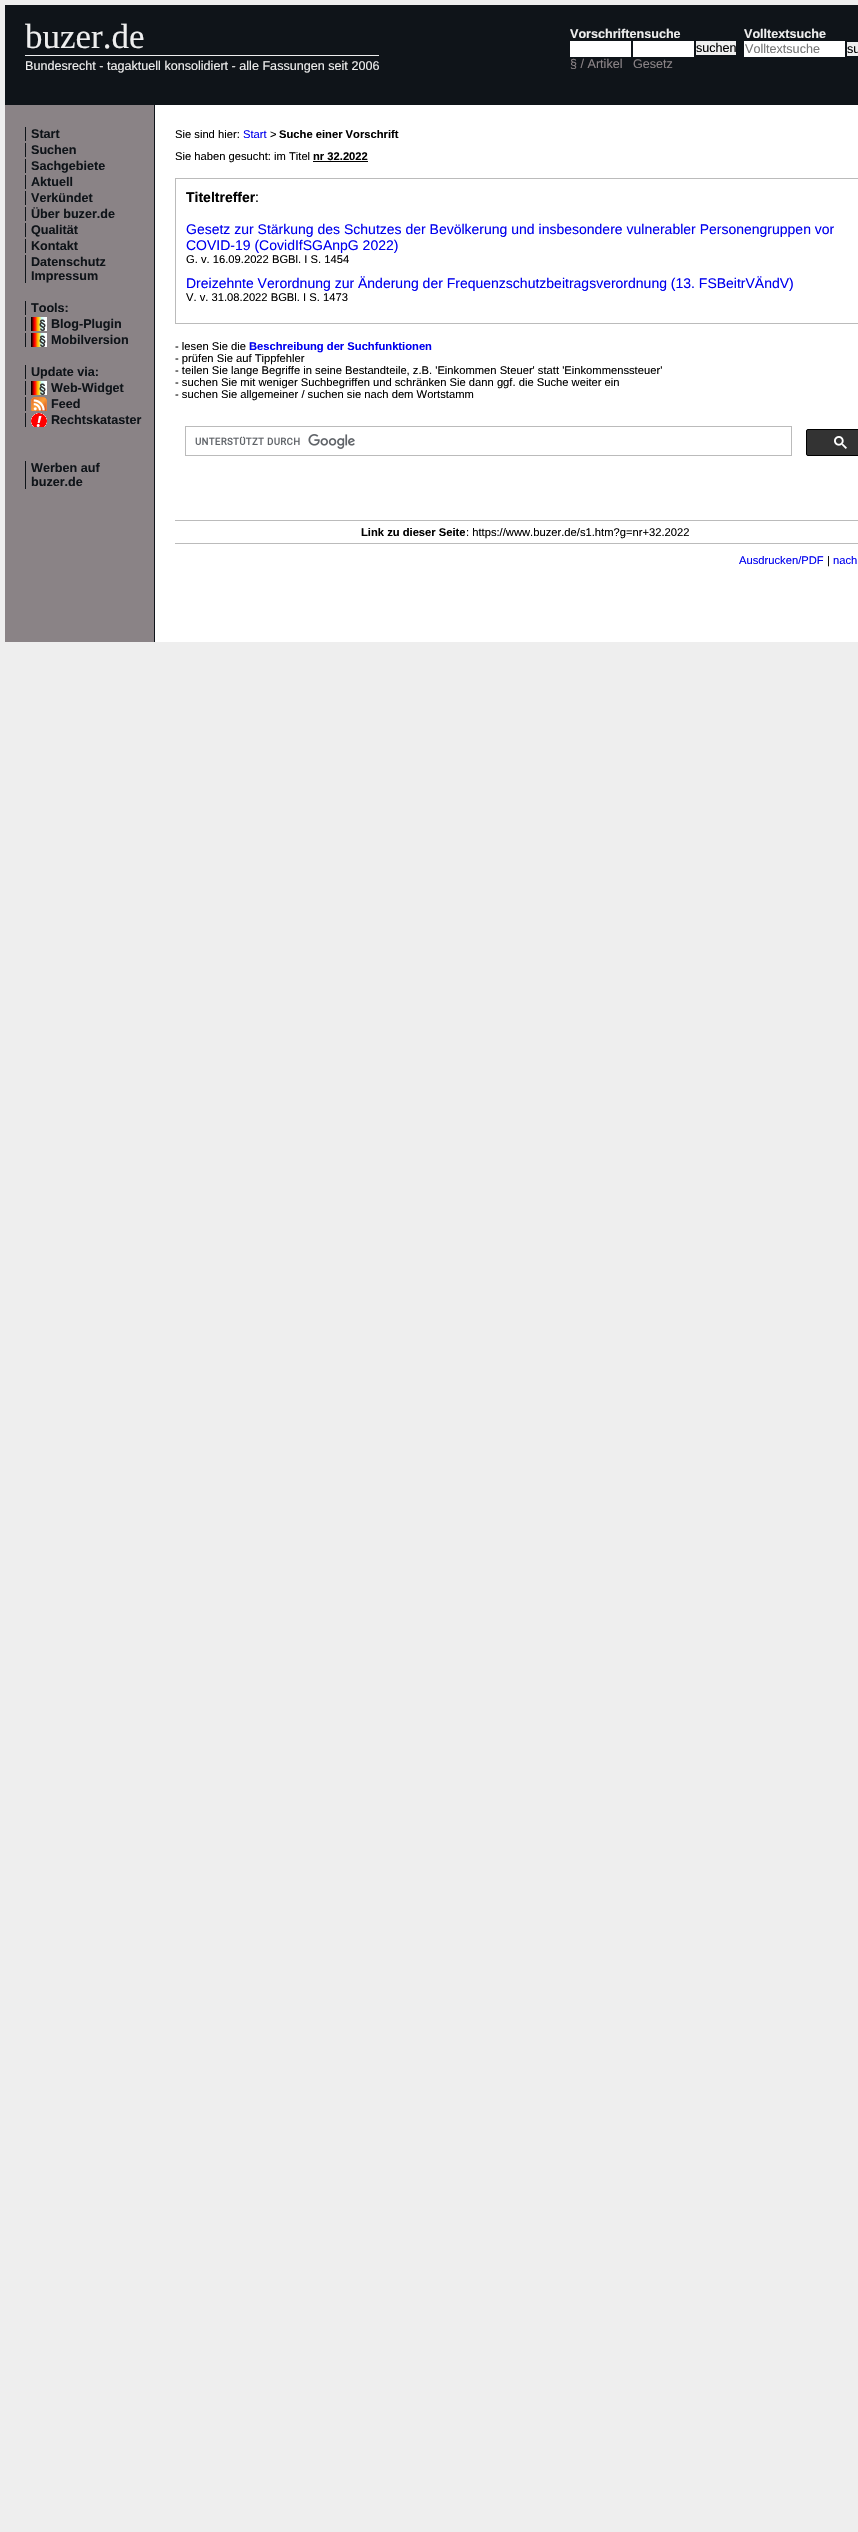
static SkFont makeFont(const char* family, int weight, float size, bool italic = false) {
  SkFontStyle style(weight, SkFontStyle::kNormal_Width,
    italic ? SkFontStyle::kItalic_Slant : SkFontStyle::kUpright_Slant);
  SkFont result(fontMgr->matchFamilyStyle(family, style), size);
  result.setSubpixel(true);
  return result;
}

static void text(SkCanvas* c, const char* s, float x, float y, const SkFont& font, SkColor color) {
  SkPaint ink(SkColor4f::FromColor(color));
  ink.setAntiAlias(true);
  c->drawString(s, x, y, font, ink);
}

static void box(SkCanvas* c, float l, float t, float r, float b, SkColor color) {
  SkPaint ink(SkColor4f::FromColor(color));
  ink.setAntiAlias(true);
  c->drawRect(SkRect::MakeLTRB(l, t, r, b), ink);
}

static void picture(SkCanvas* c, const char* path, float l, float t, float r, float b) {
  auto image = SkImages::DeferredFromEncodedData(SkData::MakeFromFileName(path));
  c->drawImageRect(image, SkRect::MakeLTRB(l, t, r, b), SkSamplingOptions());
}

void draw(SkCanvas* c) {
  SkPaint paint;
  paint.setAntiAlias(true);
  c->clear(0xffeeeeee);
  box(c, 5, 5, 858, 105, 0xff0f1419);
  SkFont face1 = makeFont("Liberation Serif", 400, 35);
  text(c, "buzer.de", 25, 48, face1, 0xffeeeeee);
  SkFont face2 = makeFont("Liberation Sans", 700, 12.6f);
  text(c, "Vorschriftensuche", 570, 38, face2, 0xffeeeeee);
  box(c, 696, 41, 736, 55, 0xffefefef);
  SkFont face3 = makeFont("Liberation Sans", 400, 12.6f);
  text(c, "suchen", 696, 52, face3, 0xff000000);
  box(c, 570, 41, 631, 57, 0xffffffff);
  text(c, "§ / Artikel", 570, 68, face3, 0xff8a8386);
  box(c, 633, 41, 694, 57, 0xffffffff);
  text(c, "Gesetz", 633, 68, face3, 0xff8a8386);
  text(c, "Volltextsuche", 744, 38, face2, 0xffeeeeee);
  box(c, 744, 41, 845, 57, 0xffffffff);
  text(c, "Volltextsuche", 745, 53, face3, 0xff757575);
  box(c, 847, 42, 858, 56, 0xffefefef);
  text(c, "su", 847, 53, face3, 0xff000000);
  box(c, 25, 55, 379, 56, 0xffeeeeee);
  text(c, "Bundesrecht - tagaktuell konsolidiert - alle Fassungen seit 2006", 25, 70, face3, 0xffeeeeee);
  box(c, 5, 105, 154, 642, 0xff8a8386);
  box(c, 154, 105, 155, 642, 0xff0f1419);
  box(c, 155, 105, 858, 642, 0xffffffff);
  box(c, 25, 127, 26, 141, 0xff0f1419);
  text(c, "Start", 31, 138, face2, 0xff0f1419);
  box(c, 25, 143, 26, 157, 0xff0f1419);
  text(c, "Suchen", 31, 154, face2, 0xff0f1419);
  box(c, 25, 159, 26, 173, 0xff0f1419);
  text(c, "Sachgebiete", 31, 170, face2, 0xff0f1419);
  box(c, 25, 175, 26, 189, 0xff0f1419);
  text(c, "Aktuell", 31, 186, face2, 0xff0f1419);
  box(c, 25, 191, 26, 205, 0xff0f1419);
  text(c, "Verkündet", 31, 202, face2, 0xff0f1419);
  box(c, 25, 207, 26, 221, 0xff0f1419);
  text(c, "Über buzer.de", 31, 218, face2, 0xff0f1419);
  box(c, 25, 223, 26, 237, 0xff0f1419);
  text(c, "Qualität", 31, 234, face2, 0xff0f1419);
  box(c, 25, 239, 26, 253, 0xff0f1419);
  text(c, "Kontakt", 31, 250, face2, 0xff0f1419);
  box(c, 25, 255, 26, 283, 0xff0f1419);
  text(c, "Datenschutz", 31, 266, face2, 0xff0f1419);
  text(c, "Impressum", 31, 280, face2, 0xff0f1419);
  box(c, 25, 301, 26, 315, 0xff0f1419);
  text(c, "Tools:", 31, 312, face2, 0xff0f1419);
  box(c, 25, 317, 26, 331, 0xff0f1419);
  picture(c, "img_01.png", 31, 317, 47, 331);
  text(c, "Blog-Plugin", 51, 328, face2, 0xff0f1419);
  box(c, 25, 333, 26, 347, 0xff0f1419);
  picture(c, "img_01.png", 31, 333, 47, 347);
  text(c, "Mobilversion", 51, 344, face2, 0xff0f1419);
  box(c, 25, 365, 26, 379, 0xff0f1419);
  text(c, "Update via:", 31, 376, face2, 0xff0f1419);
  box(c, 25, 381, 26, 395, 0xff0f1419);
  picture(c, "img_01.png", 31, 381, 47, 395);
  text(c, "Web-Widget", 51, 392, face2, 0xff0f1419);
  box(c, 25, 397, 26, 411, 0xff0f1419);
  picture(c, "img_02.png", 31, 397, 47, 411);
  text(c, "Feed", 51, 408, face2, 0xff0f1419);
  box(c, 25, 413, 26, 427, 0xff0f1419);
  picture(c, "img_03.png", 31, 413, 47, 427);
  text(c, "Rechtskataster", 51, 424, face2, 0xff0f1419);
  box(c, 25, 461, 26, 489, 0xff0f1419);
  text(c, "Werben auf", 31, 472, face2, 0xff0f1419);
  text(c, "buzer.de", 31, 486, face2, 0xff0f1419);
  SkFont face4 = makeFont("Liberation Sans", 400, 11.2f);
  text(c, "Sie sind hier:", 175, 138, face4, 0xff000000);
  text(c, "Start", 243, 138, face4, 0xff0000ee);
  text(c, ">", 270, 138, face4, 0xff000000);
  SkFont face5 = makeFont("Liberation Sans", 700, 11.2f);
  text(c, "Suche einer Vorschrift", 279, 138, face5, 0xff000000);
  text(c, "Sie haben gesucht: im Titel", 175, 160, face4, 0xff000000);
  text(c, "nr 32.2022", 313, 160, face5, 0xff000000);
  box(c, 313, 161, 368, 162, 0xff000000);
  paint.setStyle(SkPaint::kStroke_Style);
  paint.setStrokeWidth(1);
  paint.setColor(0xffbbbbbb);
  c->drawRect(SkRect::MakeLTRB(175.5f, 178.5f, 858.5f, 323.5f), paint);
  SkFont face6 = makeFont("Liberation Sans", 700, 14);
  text(c, "Titeltreffer", 186, 202, face6, 0xff000000);
  SkFont face7 = makeFont("Liberation Sans", 400, 14);
  text(c, ":", 255, 202, face7, 0xff000000);
  text(c, "Gesetz zur Stärkung des Schutzes der Bevölkerung und insbesondere vulnerabler Personengruppen vor", 186, 234, face7, 0xff0000ee);
  text(c, "COVID-19 (CovidIfSGAnpG 2022)", 186, 250, face7, 0xff0000ee);
  text(c, "G. v. 16.09.2022 BGBl. I S. 1454", 186, 263, face4, 0xff000000);
  text(c, "Dreizehnte Verordnung zur Änderung der Frequenzschutzbeitragsverordnung (13. FSBeitrVÄndV)", 186, 288, face7, 0xff0000ee);
  text(c, "V. v. 31.08.2022 BGBl. I S. 1473", 186, 301, face4, 0xff000000);
  text(c, "- lesen Sie die", 175, 350, face4, 0xff000000);
  text(c, "Beschreibung der Suchfunktionen", 249, 350, face5, 0xff0000ee);
  text(c, "- prüfen Sie auf Tippfehler", 175, 362, face4, 0xff000000);
  text(c, "- teilen Sie lange Begriffe in seine Bestandteile, z.B. 'Einkommen Steuer' statt 'Einkommenssteuer'", 175, 374, face4, 0xff000000);
  text(c, "- suchen Sie mit weniger Suchbegriffen und schränken Sie dann ggf. die Suche weiter ein", 175, 386, face4, 0xff000000);
  text(c, "- suchen Sie allgemeiner / suchen sie nach dem Wortstamm", 175, 398, face4, 0xff000000);
  c->drawRect(SkRect::MakeLTRB(185.5f, 426.5f, 791.5f, 455.5f), paint);
  picture(c, "img_04.png", 195, 434, 355, 449);
  paint.setStyle(SkPaint::kFill_Style);
  paint.setColor(0xff333333);
  c->drawRoundRect(SkRect::MakeLTRB(806.5f, 429.5f, 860.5f, 455.5f), 1.5f, 1.5f, paint);
  paint.setStyle(SkPaint::kStroke_Style);
  paint.setColor(0xff000000);
  c->drawRoundRect(SkRect::MakeLTRB(806.5f, 429.5f, 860.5f, 455.5f), 1.5f, 1.5f, paint);
  picture(c, "img_05.png", 834, 436, 847, 449);
  box(c, 175, 520, 858, 521, 0xffbbbbbb);
  box(c, 175, 543, 858, 544, 0xffbbbbbb);
  text(c, "Link zu dieser Seite", 361, 536, face5, 0xff000000);
  text(c, ": https://www.buzer.de/s1.htm?g=nr+32.2022", 466, 536, face4, 0xff000000);
  text(c, "Ausdrucken/PDF", 739, 564, face4, 0xff0000ee);
  text(c, "|", 827, 564, face4, 0xff000000);
  text(c, "nach", 833, 564, face4, 0xff0000ee);
}
